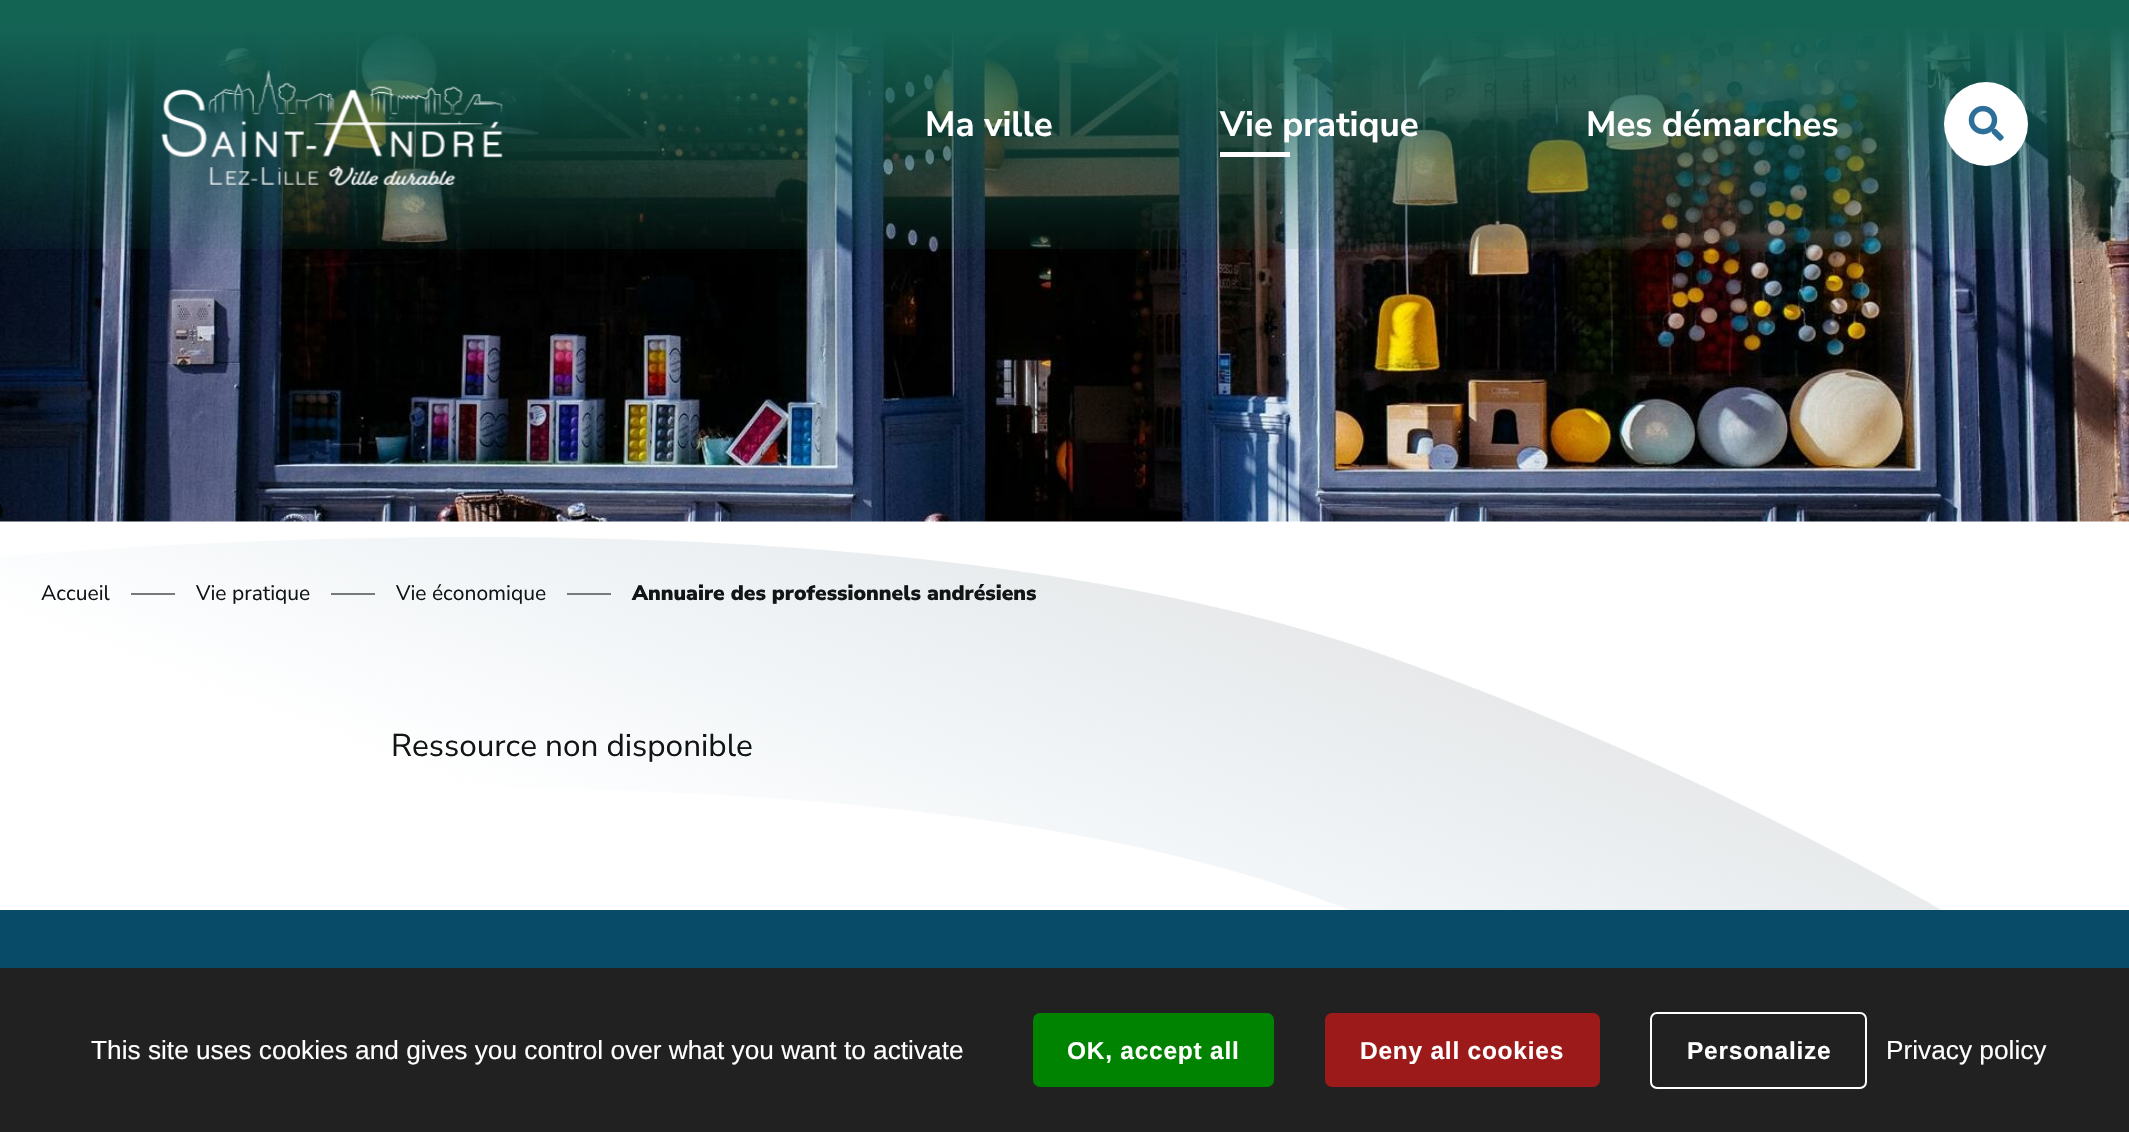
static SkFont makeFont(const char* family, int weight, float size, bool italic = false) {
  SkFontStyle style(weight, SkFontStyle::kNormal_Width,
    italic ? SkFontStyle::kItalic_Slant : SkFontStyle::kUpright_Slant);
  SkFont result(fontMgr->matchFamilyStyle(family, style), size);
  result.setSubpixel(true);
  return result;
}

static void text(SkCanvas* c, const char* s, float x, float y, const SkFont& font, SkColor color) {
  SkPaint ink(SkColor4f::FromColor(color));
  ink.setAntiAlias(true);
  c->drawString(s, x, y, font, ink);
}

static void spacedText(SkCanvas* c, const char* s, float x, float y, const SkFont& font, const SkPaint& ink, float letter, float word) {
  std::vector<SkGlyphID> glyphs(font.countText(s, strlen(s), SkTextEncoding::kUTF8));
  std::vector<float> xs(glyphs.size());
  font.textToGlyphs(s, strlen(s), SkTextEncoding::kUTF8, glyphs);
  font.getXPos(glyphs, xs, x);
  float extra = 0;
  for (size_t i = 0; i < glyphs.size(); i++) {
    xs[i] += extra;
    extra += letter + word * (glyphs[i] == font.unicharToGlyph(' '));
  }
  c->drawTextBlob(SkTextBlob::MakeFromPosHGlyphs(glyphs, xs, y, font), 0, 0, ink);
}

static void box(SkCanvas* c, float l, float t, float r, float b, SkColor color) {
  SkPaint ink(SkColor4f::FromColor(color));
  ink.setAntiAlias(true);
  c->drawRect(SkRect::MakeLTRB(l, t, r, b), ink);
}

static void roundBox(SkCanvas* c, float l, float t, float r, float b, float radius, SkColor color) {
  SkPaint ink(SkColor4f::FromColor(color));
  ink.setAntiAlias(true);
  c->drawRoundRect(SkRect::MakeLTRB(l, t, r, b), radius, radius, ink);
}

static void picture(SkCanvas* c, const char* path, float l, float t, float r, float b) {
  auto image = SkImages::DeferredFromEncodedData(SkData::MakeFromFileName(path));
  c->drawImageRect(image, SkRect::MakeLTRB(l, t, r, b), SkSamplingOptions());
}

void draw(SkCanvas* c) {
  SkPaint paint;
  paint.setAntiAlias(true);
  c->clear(0xffffffff);
  picture(c, "img_01.png", 0, 0, 2129, 522);
  picture(c, "img_02.png", 161, 70, 503, 186);
  SkFont face1 = makeFont("Nunito Sans", 700, 35);
  text(c, "Ma ville", 925, 136, face1, 0xffffffff);
  text(c, "Vie pratique", 1220, 136, face1, 0xffffffff);
  box(c, 1220, 152, 1290, 157, 0xffffffff);
  text(c, "Mes démarches", 1586, 136, face1, 0xffffffff);
  paint.setColor(0xffffffff);
  c->drawCircle(1986, 124, 42, paint);
  picture(c, "img_03.png", 1968, 105, 2004, 141);
  picture(c, "img_04.png", 0, 537, 1941, 910);
  SkFont face2 = makeFont("Nunito Sans", 400, 21);
  text(c, "Accueil", 41, 600, face2, 0xff121516);
  box(c, 131, 593, 175, 595, 0xff777a7d);
  text(c, "Vie pratique", 196, 600, face2, 0xff121516);
  box(c, 331, 593, 375, 595, 0xff777a7d);
  text(c, "Vie économique", 396, 600, face2, 0xff121516);
  box(c, 567, 593, 611, 595, 0xff777a7d);
  SkFont face3 = makeFont("Nunito Sans", 900, 21);
  text(c, "Annuaire des professionnels andrésiens", 632, 600, face3, 0xff121516);
  SkFont face4 = makeFont("Nunito Sans", 400, 31.5f);
  text(c, "Ressource non disponible", 391, 756, face4, 0xff121516);
  box(c, 0, 910, 2129, 968, 0xff084b69);
  box(c, 0, 968, 2129, 1132, 0xff212121);
  SkFont face5 = makeFont("Liberation Sans", 400, 26.25f);
  text(c, "This site uses cookies and gives you control over what you want to activate", 91, 1059, face5, 0xffffffff);
  roundBox(c, 1033, 1013, 1274, 1087, 7, 0xff008300);
  SkFont face6 = makeFont("Liberation Sans", 700, 24.5f);
  spacedText(c, "OK, accept all", 1067, 1059, face6, paint, 0.75f, 0);
  roundBox(c, 1325, 1013, 1600, 1087, 7, 0xff9c1a1a);
  spacedText(c, "Deny all cookies", 1360, 1059, face6, paint, 0.75f, 0);
  paint.setStyle(SkPaint::kStroke_Style);
  paint.setStrokeWidth(2);
  c->drawRoundRect(SkRect::MakeLTRB(1651, 1013, 1866, 1088), 6, 6, paint);
  paint.setStyle(SkPaint::kFill_Style);
  spacedText(c, "Personalize", 1687, 1059, face6, paint, 0.75f, 0);
  text(c, "Privacy policy", 1886, 1059, face5, 0xffffffff);
}
